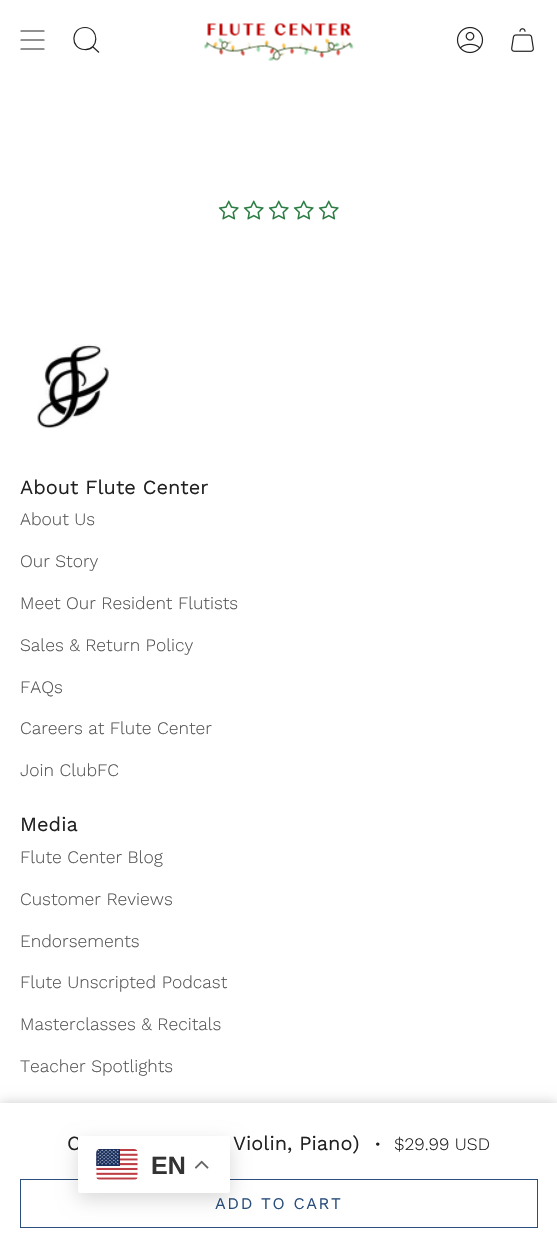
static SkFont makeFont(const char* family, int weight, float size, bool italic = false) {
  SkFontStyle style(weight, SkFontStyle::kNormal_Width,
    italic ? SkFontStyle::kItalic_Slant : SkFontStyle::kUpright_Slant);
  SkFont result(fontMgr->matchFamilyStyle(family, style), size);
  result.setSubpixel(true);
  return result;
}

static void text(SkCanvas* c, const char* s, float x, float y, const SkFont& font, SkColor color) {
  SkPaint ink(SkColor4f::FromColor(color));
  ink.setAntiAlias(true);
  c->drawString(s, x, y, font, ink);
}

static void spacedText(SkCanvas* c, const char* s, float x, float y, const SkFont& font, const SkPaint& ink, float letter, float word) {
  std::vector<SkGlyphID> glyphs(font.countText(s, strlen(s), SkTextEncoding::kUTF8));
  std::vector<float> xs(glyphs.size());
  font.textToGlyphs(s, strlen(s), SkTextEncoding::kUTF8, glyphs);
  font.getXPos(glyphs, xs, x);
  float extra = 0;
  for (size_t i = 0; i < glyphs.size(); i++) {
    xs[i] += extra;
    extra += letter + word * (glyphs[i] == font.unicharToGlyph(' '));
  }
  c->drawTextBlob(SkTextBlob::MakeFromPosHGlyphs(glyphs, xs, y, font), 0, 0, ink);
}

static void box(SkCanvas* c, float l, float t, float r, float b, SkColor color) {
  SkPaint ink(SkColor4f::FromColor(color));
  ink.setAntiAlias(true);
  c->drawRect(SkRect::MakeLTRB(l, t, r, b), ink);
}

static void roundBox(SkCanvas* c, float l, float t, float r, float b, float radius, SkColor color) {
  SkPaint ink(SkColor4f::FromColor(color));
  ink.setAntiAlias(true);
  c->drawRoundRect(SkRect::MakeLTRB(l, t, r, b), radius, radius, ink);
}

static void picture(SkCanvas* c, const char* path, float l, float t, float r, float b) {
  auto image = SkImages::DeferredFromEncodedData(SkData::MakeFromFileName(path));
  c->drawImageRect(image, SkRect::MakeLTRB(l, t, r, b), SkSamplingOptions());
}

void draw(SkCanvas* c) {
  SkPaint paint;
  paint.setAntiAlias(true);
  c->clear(0xffffffff);
  picture(c, "img_01.png", 37, 344, 110, 429);
  SkFont face1 = makeFont("Work Sans", 400, 20);
  text(c, "About Flute Center", 20, 494, face1, 0xff212121);
  SkFont face2 = makeFont("Work Sans", 300, 17.5f);
  text(c, "About Us", 20, 525, face2, 0xff545454);
  text(c, "Our Story", 20, 567, face2, 0xff545454);
  text(c, "Meet Our Resident Flutists", 20, 609, face2, 0xff545454);
  text(c, "Sales & Return Policy", 20, 651, face2, 0xff545454);
  text(c, "FAQs", 20, 693, face2, 0xff545454);
  text(c, "Careers at Flute Center", 20, 734, face2, 0xff545454);
  text(c, "Join ClubFC", 20, 776, face2, 0xff545454);
  text(c, "Media", 20, 831, face1, 0xff212121);
  text(c, "Flute Center Blog", 20, 863, face2, 0xff545454);
  text(c, "Customer Reviews", 20, 905, face2, 0xff545454);
  text(c, "Endorsements", 20, 947, face2, 0xff545454);
  text(c, "Flute Unscripted Podcast", 20, 988, face2, 0xff545454);
  text(c, "Masterclasses & Recitals", 20, 1030, face2, 0xff545454);
  text(c, "Teacher Spotlights", 20, 1072, face2, 0xff545454);
  paint.setStyle(SkPaint::kStroke_Style);
  paint.setStrokeWidth(1.2f);
  paint.setStrokeCap(SkPaint::kRound_Cap);
  paint.setStrokeJoin(SkPaint::kRound_Join);
  paint.setColor(0xff212121);
  c->drawPath(SkPathBuilder().moveTo(21, 31).lineTo(44, 31).moveTo(21, 40).lineTo(44, 40).moveTo(21, 49).lineTo(44, 49).detach(), paint);
  paint.setStrokeCap(SkPaint::kButt_Cap);
  paint.setStrokeJoin(SkPaint::kMiter_Join);
  c->drawPath(SkPathBuilder().moveTo(85, 27.5f).cubicTo(99.5f, 27.5f, 99.5f, 50.5f, 84.5f, 49.5f).cubicTo(70, 49, 70.5f, 27.5f, 85, 27.5f).close().moveTo(92.5f, 46.5f).lineTo(99, 52.5f).detach(), paint);
  picture(c, "img_02.png", 204, 23, 354, 61);
  picture(c, "img_03.png", 456, 26, 484, 54);
  picture(c, "img_04.png", 511, 28, 534, 52);
  picture(c, "img_05.png", 218, 200, 239, 220);
  picture(c, "img_05.png", 243, 200, 264, 220);
  picture(c, "img_05.png", 268, 200, 289, 220);
  picture(c, "img_05.png", 293, 200, 314, 220);
  picture(c, "img_05.png", 318, 200, 339, 220);
  paint.setStyle(SkPaint::kFill_Style);
  paint.setColor(0x33000000);
  paint.setMaskFilter(SkMaskFilter::MakeBlur(kNormal_SkBlurStyle, 6));
  c->drawRect(SkRect::MakeLTRB(0, 1103, 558, 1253), paint);
  paint.setMaskFilter(nullptr);
  box(c, 0, 1103, 557, 1252, 0xffffffff);
  text(c, "C", 67, 1150, face1, 0xff212121);
  text(c, "Violin, Piano)", 233, 1150, face1, 0xff212121);
  text(c, "•", 374, 1150, face2, 0xff212121);
  text(c, "$29.99 USD", 394, 1150, face2, 0xff212121);
  paint.setStyle(SkPaint::kStroke_Style);
  paint.setStrokeWidth(1);
  paint.setColor(0xff2a4f7c);
  c->drawRect(SkRect::MakeLTRB(20.5f, 1179.5f, 537.5f, 1227.5f), paint);
  SkFont face3 = makeFont("Work Sans", 400, 16.25f);
  paint.setStyle(SkPaint::kFill_Style);
  spacedText(c, "ADD TO CART", 215, 1209, face3, paint, 1.6f, 0);
  paint.setStyle(SkPaint::kStroke_Style);
  paint.setStrokeWidth(1.2f);
  paint.setColor(0xffffffff);
  c->drawCircle(279, 1204, 9, paint);
  paint.setStyle(SkPaint::kFill_Style);
  paint.setColor(0x26000000);
  paint.setMaskFilter(SkMaskFilter::MakeBlur(kNormal_SkBlurStyle, 9.5f));
  c->drawRoundRect(SkRect::MakeLTRB(78, 1143, 230, 1199), 2.5f, 2.5f, paint);
  paint.setMaskFilter(nullptr);
  roundBox(c, 78, 1136, 230, 1193, 2.5f, 0xffffffff);
  picture(c, "img_06.png", 96, 1149, 138, 1180);
  SkFont face4 = makeFont("Liberation Sans", 700, 25);
  text(c, "EN", 151, 1174, face4, 0xff333333);
  picture(c, "img_07.png", 195, 1160, 209, 1169);
}
